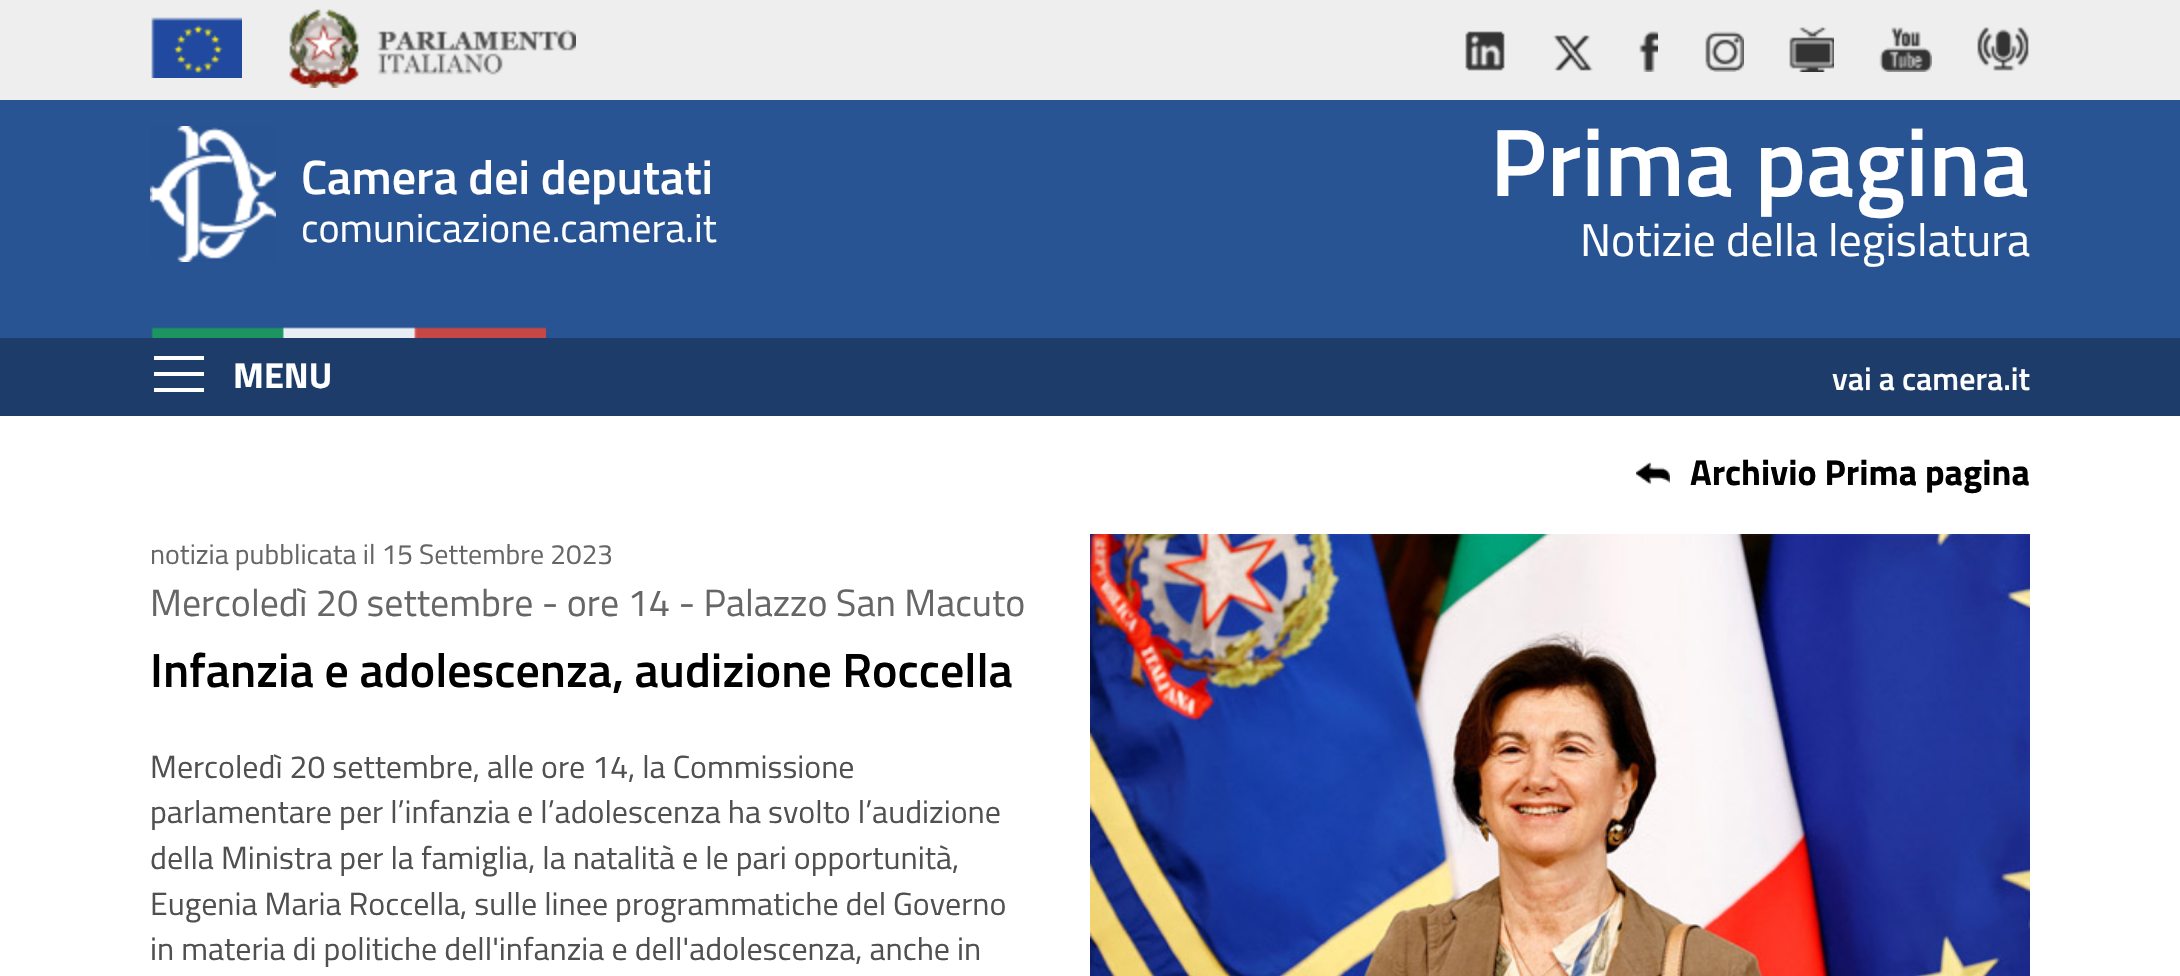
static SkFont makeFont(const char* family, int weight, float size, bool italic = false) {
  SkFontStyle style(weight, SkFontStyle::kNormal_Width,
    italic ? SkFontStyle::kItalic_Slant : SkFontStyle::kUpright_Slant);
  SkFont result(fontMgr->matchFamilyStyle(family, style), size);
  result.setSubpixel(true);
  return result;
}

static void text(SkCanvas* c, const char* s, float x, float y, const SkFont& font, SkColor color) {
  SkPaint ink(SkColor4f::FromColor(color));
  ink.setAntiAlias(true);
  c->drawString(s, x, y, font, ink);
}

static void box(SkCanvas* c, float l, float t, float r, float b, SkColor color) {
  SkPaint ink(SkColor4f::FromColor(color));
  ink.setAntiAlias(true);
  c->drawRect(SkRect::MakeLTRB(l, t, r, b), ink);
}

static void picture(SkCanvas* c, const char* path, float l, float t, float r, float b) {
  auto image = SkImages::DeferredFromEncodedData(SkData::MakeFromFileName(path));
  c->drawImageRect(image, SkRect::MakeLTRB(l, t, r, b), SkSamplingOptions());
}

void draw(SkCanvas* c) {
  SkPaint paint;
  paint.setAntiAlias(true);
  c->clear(0xffeeeeee);
  picture(c, "img_01.png", 151, 17, 242, 78);
  picture(c, "img_02.png", 289, 9, 576, 88);
  picture(c, "img_03.png", 1465, 31, 1505, 71);
  picture(c, "img_04.png", 1553, 35, 1593, 71);
  picture(c, "img_05.png", 1639, 31, 1658, 72);
  picture(c, "img_06.png", 1705, 31, 1744, 72);
  picture(c, "img_07.png", 1789, 27, 1834, 72);
  picture(c, "img_08.png", 1879, 27, 1932, 72);
  picture(c, "img_09.png", 1977, 27, 2029, 71);
  box(c, 0, 100, 2180, 338, 0xff285493);
  picture(c, "img_10.png", 150, 126, 546, 338);
  SkFont face1 = makeFont("Titillium Web", 600, 48);
  text(c, "Camera dei deputati", 301, 194, face1, 0xffffffff);
  SkFont face2 = makeFont("Titillium Web", 400, 40);
  text(c, "comunicazione.camera.it", 301, 242, face2, 0xffffffff);
  SkFont face3 = makeFont("Titillium Web", 600, 96);
  text(c, "Prima pagina", 1490, 196, face3, 0xffffffff);
  SkFont face4 = makeFont("Titillium Web", 400, 46);
  text(c, "Notizie della legislatura", 1580, 256, face4, 0xffffffff);
  box(c, 0, 338, 2180, 416, 0xff1d3c6a);
  box(c, 154, 356, 204, 360, 0xffffffff);
  box(c, 154, 372, 204, 376, 0xffffffff);
  box(c, 154, 388, 204, 392, 0xffffffff);
  SkFont face5 = makeFont("Titillium Web", 700, 36);
  text(c, "MENU", 233, 388, face5, 0xffffffff);
  SkFont face6 = makeFont("Titillium Web", 600, 32);
  text(c, "vai a camera.it", 1832, 390, face6, 0xffffffff);
  box(c, 0, 416, 2180, 976, 0xffffffff);
  picture(c, "img_11.png", 1636, 462, 1670, 484);
  text(c, "Archivio Prima pagina", 1690, 485, face5, 0xff000000);
  SkFont face7 = makeFont("Titillium Web", 400, 28);
  text(c, "notizia pubblicata il 15 Settembre 2023", 150, 564, face7, 0xff666666);
  picture(c, "img_12.png", 1090, 534, 2030, 976);
  SkFont face8 = makeFont("Titillium Web", 400, 38);
  text(c, "Mercoledì 20 settembre - ore 14 - Palazzo San Macuto", 150, 616, face8, 0xff666666);
  text(c, "Infanzia e adolescenza, audizione Roccella", 150, 687, face1, 0xff000000);
  SkFont face9 = makeFont("Titillium Web", 400, 32);
  text(c, "Mercoledì 20 settembre, alle ore 14, la Commissione", 150, 778, face9, 0xff505050);
  text(c, "parlamentare per l’infanzia e l’adolescenza ha svolto l’audizione", 150, 823, face9, 0xff505050);
  text(c, "della Ministra per la famiglia, la natalità e le pari opportunità,", 150, 869, face9, 0xff505050);
  text(c, "Eugenia Maria Roccella, sulle linee programmatiche del Governo", 150, 915, face9, 0xff505050);
  text(c, "in materia di politiche dell'infanzia e dell'adolescenza, anche in", 150, 960, face9, 0xff505050);
}
